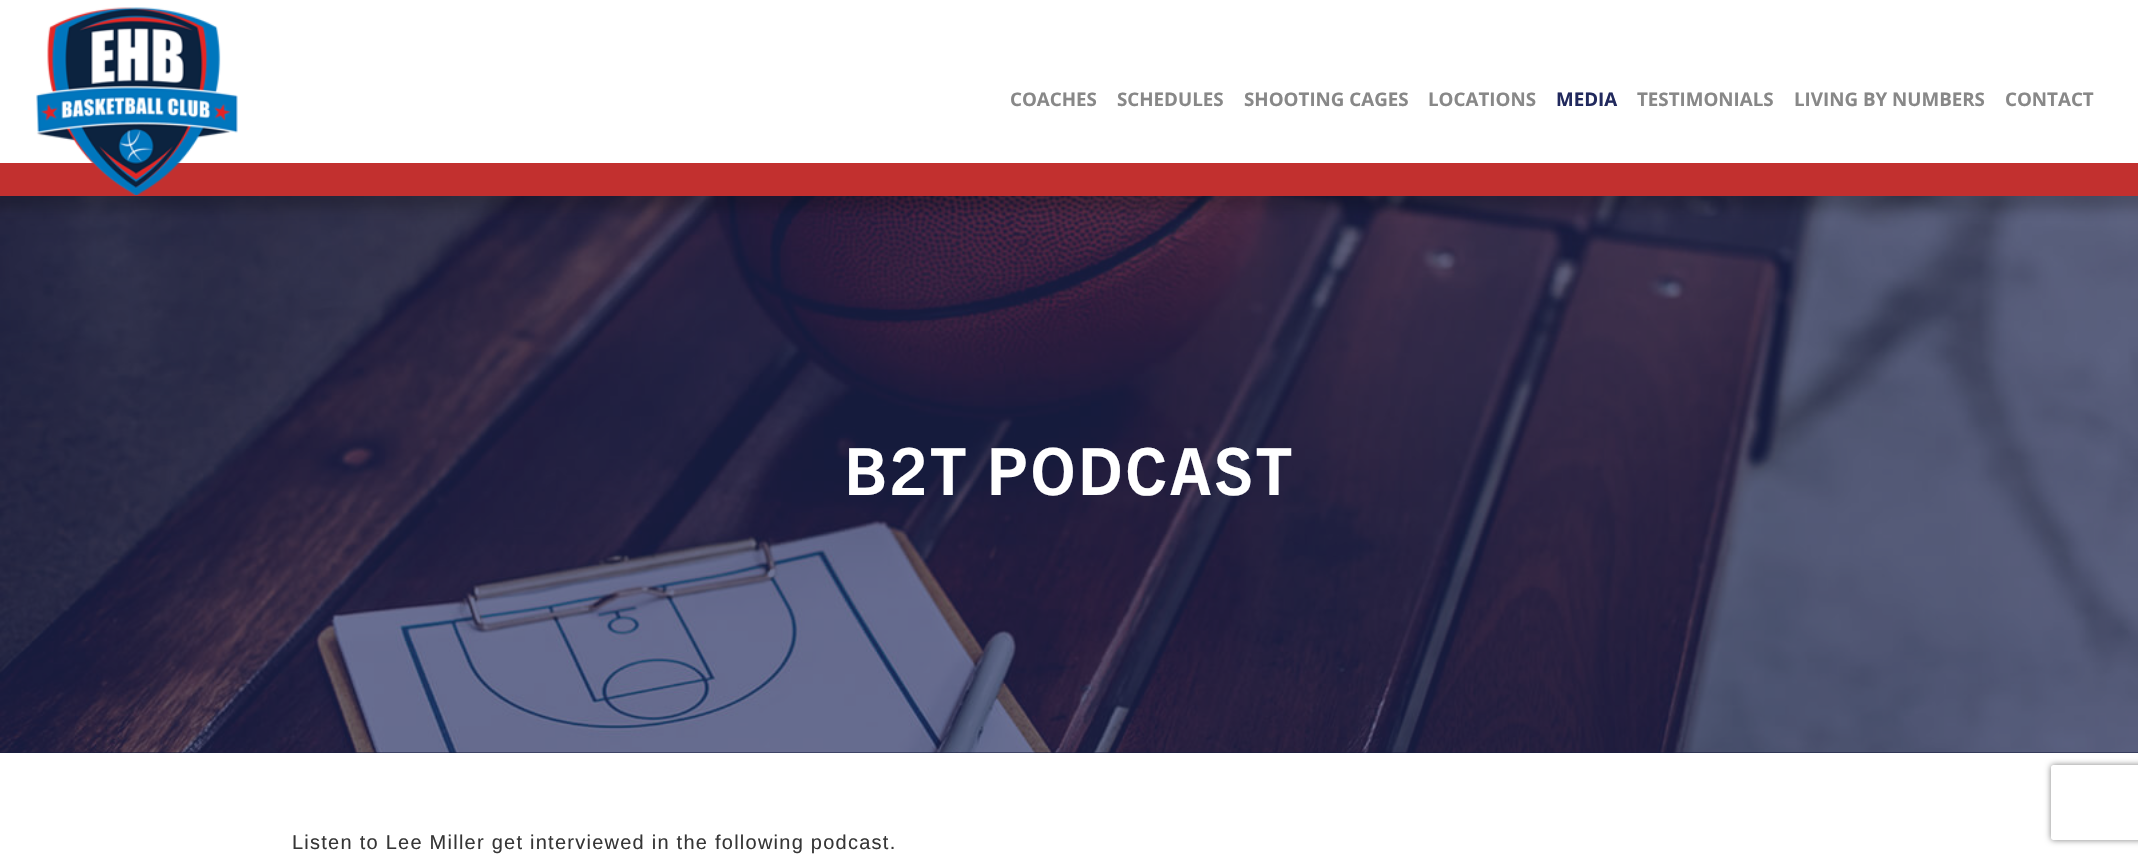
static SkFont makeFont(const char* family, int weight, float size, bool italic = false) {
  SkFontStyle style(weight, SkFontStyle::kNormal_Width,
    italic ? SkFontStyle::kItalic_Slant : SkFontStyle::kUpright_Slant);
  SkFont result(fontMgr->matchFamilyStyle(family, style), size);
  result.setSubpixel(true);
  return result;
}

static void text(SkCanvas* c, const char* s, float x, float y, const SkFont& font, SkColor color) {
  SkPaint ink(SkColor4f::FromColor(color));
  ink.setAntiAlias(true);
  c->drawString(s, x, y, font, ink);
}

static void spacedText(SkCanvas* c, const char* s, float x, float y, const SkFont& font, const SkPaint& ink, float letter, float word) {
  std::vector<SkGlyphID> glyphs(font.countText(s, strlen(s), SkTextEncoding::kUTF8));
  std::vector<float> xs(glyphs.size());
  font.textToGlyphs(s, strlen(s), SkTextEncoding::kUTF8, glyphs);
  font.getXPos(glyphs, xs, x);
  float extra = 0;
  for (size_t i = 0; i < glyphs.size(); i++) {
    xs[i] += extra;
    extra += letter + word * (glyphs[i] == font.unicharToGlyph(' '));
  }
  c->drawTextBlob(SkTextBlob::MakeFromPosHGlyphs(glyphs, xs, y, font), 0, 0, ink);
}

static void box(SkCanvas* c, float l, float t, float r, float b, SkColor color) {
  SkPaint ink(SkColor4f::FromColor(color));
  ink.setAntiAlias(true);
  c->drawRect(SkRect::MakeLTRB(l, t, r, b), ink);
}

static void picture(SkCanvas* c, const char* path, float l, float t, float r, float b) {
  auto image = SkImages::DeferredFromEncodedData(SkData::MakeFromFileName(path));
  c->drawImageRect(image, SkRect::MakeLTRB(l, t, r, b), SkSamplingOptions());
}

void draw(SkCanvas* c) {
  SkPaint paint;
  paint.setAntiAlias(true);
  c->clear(0xffffffff);
  box(c, 0, 752, 2138, 753, 0xff151b3c);
  picture(c, "img_02.png", 0, 196, 2138, 753);
  paint.setColor(0x33000000);
  paint.setMaskFilter(SkMaskFilter::MakeBlur(kNormal_SkBlurStyle, 6));
  c->drawRect(SkRect::MakeLTRB(-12, -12, 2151, 209), paint);
  paint.setMaskFilter(nullptr);
  box(c, 0, 0, 2138, 163, 0xffffffff);
  box(c, 0, 163, 2138, 196, 0xffc2302f);
  picture(c, "img_01.png", 36, 7, 238, 195);
  SkFont face1 = makeFont("Open Sans", 700, 18.75f);
  text(c, "COACHES", 1010, 106, face1, 0xff888888);
  text(c, "SCHEDULES", 1117, 106, face1, 0xff888888);
  text(c, "SHOOTING CAGES", 1244, 106, face1, 0xff888888);
  text(c, "LOCATIONS", 1428, 106, face1, 0xff888888);
  text(c, "MEDIA", 1556, 106, face1, 0xff21295d);
  text(c, "TESTIMONIALS", 1637, 106, face1, 0xff888888);
  text(c, "LIVING BY NUMBERS", 1794, 106, face1, 0xff888888);
  text(c, "CONTACT", 2005, 106, face1, 0xff888888);
  SkFont face2 = makeFont("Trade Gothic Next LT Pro", 700, 65);
  paint.setColor(0xffffffff);
  spacedText(c, "B2T PODCAST", 844, 495, face2, paint, 2.5f, 0);
  SkFont face3 = makeFont("Liberation Sans", 400, 20);
  paint.setColor(0xff363636);
  spacedText(c, "Listen to Lee Miller get interviewed in the following podcast.", 292, 849, face3, paint, 1.25f, 0);
  c->save();
  c->clipPath(SkPathBuilder(SkPathFillType::kEvenOdd).moveTo(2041, 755).lineTo(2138, 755).lineTo(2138, 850).lineTo(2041, 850).close().moveTo(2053.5f, 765).lineTo(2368.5f, 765).cubicTo(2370, 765, 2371, 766, 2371, 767.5f).lineTo(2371, 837.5f).cubicTo(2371, 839, 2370, 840, 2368.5f, 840).lineTo(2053.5f, 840).cubicTo(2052, 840, 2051, 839, 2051, 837.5f).lineTo(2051, 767.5f).cubicTo(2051, 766, 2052, 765, 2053.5f, 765).close().detach(), true);
  paint.setColor(0xff808080);
  paint.setMaskFilter(SkMaskFilter::MakeBlur(kNormal_SkBlurStyle, 3));
  c->drawRoundRect(SkRect::MakeLTRB(2051, 765, 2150, 840), 2.5f, 2.5f, paint);
  paint.setMaskFilter(nullptr);
  c->restore();
}
